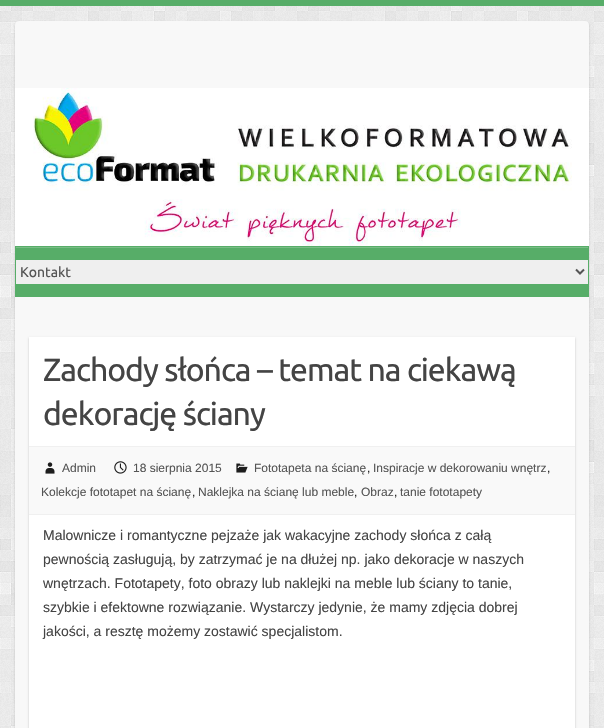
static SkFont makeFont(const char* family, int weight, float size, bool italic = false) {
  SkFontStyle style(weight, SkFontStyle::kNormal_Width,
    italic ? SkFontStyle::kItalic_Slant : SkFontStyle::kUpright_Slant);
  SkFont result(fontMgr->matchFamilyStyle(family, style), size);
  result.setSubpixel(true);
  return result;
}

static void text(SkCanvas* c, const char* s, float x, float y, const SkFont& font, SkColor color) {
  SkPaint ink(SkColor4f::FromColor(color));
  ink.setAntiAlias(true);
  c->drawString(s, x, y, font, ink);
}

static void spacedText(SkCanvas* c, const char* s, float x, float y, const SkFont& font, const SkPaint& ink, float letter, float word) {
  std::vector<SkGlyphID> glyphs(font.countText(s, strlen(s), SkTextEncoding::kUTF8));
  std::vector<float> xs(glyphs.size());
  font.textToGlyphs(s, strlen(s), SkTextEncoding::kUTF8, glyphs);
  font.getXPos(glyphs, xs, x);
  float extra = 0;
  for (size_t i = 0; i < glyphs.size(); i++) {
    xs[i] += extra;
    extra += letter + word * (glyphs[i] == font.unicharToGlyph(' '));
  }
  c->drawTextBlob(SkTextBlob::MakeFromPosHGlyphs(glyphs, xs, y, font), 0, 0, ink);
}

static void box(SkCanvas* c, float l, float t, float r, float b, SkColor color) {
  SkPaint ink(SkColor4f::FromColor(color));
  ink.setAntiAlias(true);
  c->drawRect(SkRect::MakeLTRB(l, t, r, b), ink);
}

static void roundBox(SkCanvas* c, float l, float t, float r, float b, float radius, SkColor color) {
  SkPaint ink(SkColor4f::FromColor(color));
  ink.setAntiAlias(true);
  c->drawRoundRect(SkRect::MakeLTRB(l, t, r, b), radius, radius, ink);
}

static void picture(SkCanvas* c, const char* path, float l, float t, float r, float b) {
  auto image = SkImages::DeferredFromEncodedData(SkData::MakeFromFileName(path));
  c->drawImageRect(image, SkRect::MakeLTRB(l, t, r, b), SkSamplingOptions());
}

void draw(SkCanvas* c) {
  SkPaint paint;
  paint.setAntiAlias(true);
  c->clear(0xffffffff);
  picture(c, "img_01.png", 0, 6, 604, 728);
  box(c, 0, 0, 604, 6, 0xff57ad68);
  paint.setColor(0x33000000);
  paint.setMaskFilter(SkMaskFilter::MakeBlur(kNormal_SkBlurStyle, 1));
  c->drawRoundRect(SkRect::MakeLTRB(15, 22, 589, 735), 4, 4, paint);
  paint.setMaskFilter(nullptr);
  roundBox(c, 15, 21, 589, 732, 4, 0xfff8f8f8);
  picture(c, "img_02.png", 15, 88, 589, 246);
  box(c, 15, 246, 589, 297, 0xff57ad68);
  box(c, 16, 247, 588, 248, 0xff79bd86);
  box(c, 16, 260, 588, 284, 0xffefefef);
  paint.setStyle(SkPaint::kStroke_Style);
  paint.setStrokeWidth(2);
  paint.setColor(0xff555555);
  c->drawPath(SkPathBuilder().moveTo(576, 269.5f).lineTo(580, 273.5f).lineTo(584, 269.5f).detach(), paint);
  SkFont face1 = makeFont("Ubuntu", 400, 14);
  text(c, "Kontakt", 20, 277, face1, 0xff555555);
  paint.setStyle(SkPaint::kFill_Style);
  paint.setColor(0x33000000);
  paint.setMaskFilter(SkMaskFilter::MakeBlur(kNormal_SkBlurStyle, 1));
  c->drawRect(SkRect::MakeLTRB(29, 338, 575, 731), paint);
  paint.setMaskFilter(nullptr);
  box(c, 29, 337, 575, 728, 0xffffffff);
  SkFont face2 = makeFont("Ubuntu", 400, 32);
  paint.setColor(0xff444444);
  spacedText(c, "Zachody słońca – temat na ciekawą", 43, 381, face2, paint, -1, 0);
  spacedText(c, "dekorację ściany", 43, 425, face2, paint, -1, 0);
  box(c, 29, 447, 575, 514, 0xfff9f9f9);
  box(c, 29, 446, 575, 447, 0xfff0f0f0);
  box(c, 29, 514, 575, 515, 0xfff0f0f0);
  picture(c, "img_03.png", 45, 462, 55, 474);
  SkFont face3 = makeFont("Liberation Sans", 400, 12);
  text(c, "Admin", 62, 472, face3, 0xff555555);
  picture(c, "img_04.png", 114, 461, 127, 474);
  text(c, "18 sierpnia 2015", 133, 472, face3, 0xff555555);
  picture(c, "img_05.png", 236, 463, 248, 473);
  text(c, "Fototapeta na ścianę", 254, 472, face3, 0xff555555);
  text(c, ",", 367, 472, face3, 0xff1d1d1d);
  text(c, "Inspiracje w dekorowaniu wnętrz", 373, 472, face3, 0xff555555);
  text(c, ",", 547, 472, face3, 0xff1d1d1d);
  text(c, "Kolekcje fototapet na ścianę", 41, 496, face3, 0xff555555);
  text(c, ",", 192, 496, face3, 0xff1d1d1d);
  text(c, "Naklejka na ścianę lub meble", 198, 496, face3, 0xff555555);
  text(c, ",", 354, 496, face3, 0xff1d1d1d);
  text(c, "Obraz", 361, 496, face3, 0xff555555);
  text(c, ",", 394, 496, face3, 0xff1d1d1d);
  text(c, "tanie fototapety", 400, 496, face3, 0xff555555);
  SkFont face4 = makeFont("Liberation Sans", 400, 14);
  text(c, "Malownicze i romantyczne pejzaże jak wakacyjne zachody słońca z całą", 43, 540, face4, 0xff444444);
  text(c, "pewnością zasługują, by zatrzymać je na dłużej np. jako dekoracje w naszych", 43, 564, face4, 0xff444444);
  text(c, "wnętrzach. Fototapety, foto obrazy lub naklejki na meble lub ściany to tanie,", 43, 588, face4, 0xff444444);
  text(c, "szybkie i efektowne rozwiązanie. Wystarczy jedynie, że mamy zdjęcia dobrej", 43, 612, face4, 0xff444444);
  text(c, "jakości, a resztę możemy zostawić specjalistom.", 43, 636, face4, 0xff444444);
}
